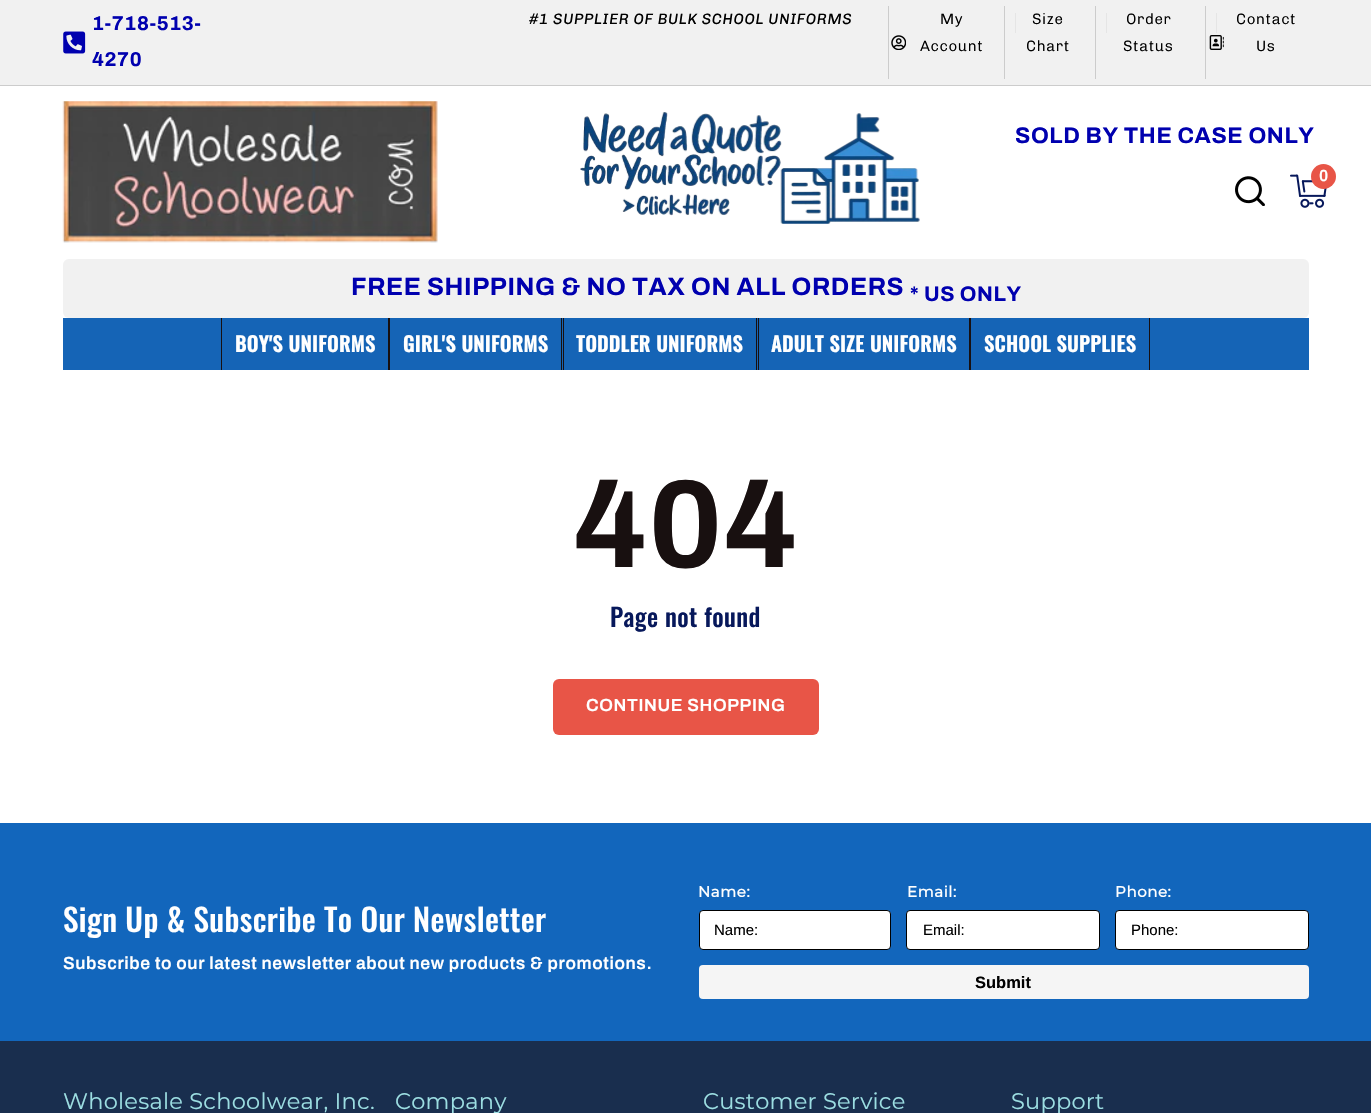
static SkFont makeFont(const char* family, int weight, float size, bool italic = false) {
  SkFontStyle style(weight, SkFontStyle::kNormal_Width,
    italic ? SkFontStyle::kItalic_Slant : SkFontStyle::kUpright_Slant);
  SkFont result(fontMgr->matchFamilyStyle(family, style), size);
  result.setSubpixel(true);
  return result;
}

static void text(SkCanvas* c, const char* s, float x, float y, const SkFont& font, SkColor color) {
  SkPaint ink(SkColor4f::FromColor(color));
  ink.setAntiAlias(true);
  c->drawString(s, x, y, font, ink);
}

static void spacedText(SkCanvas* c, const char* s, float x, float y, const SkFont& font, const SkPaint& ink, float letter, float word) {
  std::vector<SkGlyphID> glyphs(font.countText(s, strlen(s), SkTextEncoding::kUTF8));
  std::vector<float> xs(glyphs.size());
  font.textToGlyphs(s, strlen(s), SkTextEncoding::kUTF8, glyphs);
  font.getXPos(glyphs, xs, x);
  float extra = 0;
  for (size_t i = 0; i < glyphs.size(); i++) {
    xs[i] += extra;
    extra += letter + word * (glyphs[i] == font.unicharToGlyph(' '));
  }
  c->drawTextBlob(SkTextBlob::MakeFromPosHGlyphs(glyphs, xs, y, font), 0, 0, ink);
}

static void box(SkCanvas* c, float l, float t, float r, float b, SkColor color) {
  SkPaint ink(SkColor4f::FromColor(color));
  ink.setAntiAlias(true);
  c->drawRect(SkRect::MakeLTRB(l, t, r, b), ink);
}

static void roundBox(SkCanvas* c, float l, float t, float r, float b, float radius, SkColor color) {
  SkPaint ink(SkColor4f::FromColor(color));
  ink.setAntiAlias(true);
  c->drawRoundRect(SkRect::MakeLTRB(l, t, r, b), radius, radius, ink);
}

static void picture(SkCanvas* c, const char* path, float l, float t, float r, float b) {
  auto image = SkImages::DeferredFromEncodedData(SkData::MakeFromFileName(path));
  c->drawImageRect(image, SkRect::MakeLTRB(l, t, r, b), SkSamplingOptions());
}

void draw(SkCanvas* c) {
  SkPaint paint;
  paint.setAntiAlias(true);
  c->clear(0xffffffff);
  box(c, 0, 0, 1371, 85, 0xfff1f1f1);
  box(c, 0, 85, 1371, 86, 0xffcccccc);
  picture(c, "img_01.png", 63, 31, 86, 54);
  SkFont face1 = makeFont("Archivo", 700, 20);
  paint.setColor(0xff0000af);
  spacedText(c, "1-718-513-", 92, 30, face1, paint, 0.62f, 0);
  spacedText(c, "4270", 92, 66, face1, paint, 0.62f, 0);
  SkFont face2 = makeFont("Chivo", 400, 15, true);
  paint.setColor(0xff000000);
  spacedText(c, "#1 SUPPLIER OF BULK SCHOOL UNIFORMS", 529, 24, face2, paint, 0.62f, 0);
  box(c, 888, 6, 889, 79, 0xffcccccc);
  SkFont face3 = makeFont("Chivo", 300, 15);
  spacedText(c, "My", 940, 24, face3, paint, 0.62f, 0);
  spacedText(c, "Account", 920, 51, face3, paint, 0.62f, 0);
  box(c, 1015, 13, 1016, 33, 0xffe5e5e5);
  picture(c, "img_02.png", 891, 35, 906, 50);
  box(c, 1004, 6, 1005, 79, 0xffcccccc);
  spacedText(c, "Size", 1032, 24, face3, paint, 0.62f, 0);
  spacedText(c, "Chart", 1026, 51, face3, paint, 0.62f, 0);
  box(c, 1106, 13, 1107, 33, 0xffe5e5e5);
  box(c, 1095, 6, 1096, 79, 0xffcccccc);
  spacedText(c, "Order", 1126, 24, face3, paint, 0.62f, 0);
  spacedText(c, "Status", 1123, 51, face3, paint, 0.62f, 0);
  box(c, 1216, 13, 1217, 33, 0xffe5e5e5);
  box(c, 1205, 6, 1206, 79, 0xffcccccc);
  picture(c, "img_03.png", 1209, 35, 1224, 50);
  spacedText(c, "Contact", 1236, 24, face3, paint, 0.62f, 0);
  spacedText(c, "Us", 1256, 51, face3, paint, 0.62f, 0);
  picture(c, "img_04.png", 62, 101, 438, 243);
  picture(c, "img_05.png", 580, 112, 920, 224);
  SkFont face4 = makeFont("Archivo", 700, 22.5f);
  paint.setColor(0xff0000af);
  spacedText(c, "SOLD BY THE CASE ONLY", 1015, 143, face4, paint, 0.62f, 0);
  picture(c, "img_06.png", 1235, 176, 1265, 206);
  picture(c, "img_07.png", 1290, 174, 1327, 208);
  paint.setColor(0xffe85547);
  c->drawCircle(1323.5f, 176.5f, 12.5f, paint);
  SkFont face5 = makeFont("Archivo", 600, 16);
  paint.setColor(0xffffffff);
  spacedText(c, "0", 1319, 181, face5, paint, 0.62f, 0);
  roundBox(c, 63, 259, 1309, 318, 6, 0xfff1f1f1);
  SkFont face6 = makeFont("Archivo", 700, 25);
  paint.setColor(0xff0000af);
  spacedText(c, "FREE SHIPPING & NO TAX ON ALL ORDERS", 351, 295, face6, paint, 0.62f, 0);
  SkFont face7 = makeFont("Archivo", 700, 21);
  spacedText(c, "* US ONLY", 910, 301, face7, paint, 0.62f, 0);
  box(c, 63, 318, 1309, 370, 0xff1564b6);
  box(c, 388, 318, 390, 370, 0xff181010);
  box(c, 221, 318, 222, 370, 0xff181010);
  SkFont face8 = makeFont("Oswald", 700, 20);
  paint.setColor(0xffffffff);
  spacedText(c, "BOY'S UNIFORMS", 235, 352, face8, paint, 0.62f, 0);
  box(c, 561, 318, 562, 370, 0xff181010);
  spacedText(c, "GIRL'S UNIFORMS", 403, 352, face8, paint, 0.62f, 0);
  box(c, 756, 318, 757, 370, 0xff181010);
  box(c, 563, 318, 564, 370, 0xff181010);
  spacedText(c, "TODDLER UNIFORMS", 576, 352, face8, paint, 0.62f, 0);
  box(c, 969, 318, 971, 370, 0xff181010);
  box(c, 758, 318, 759, 370, 0xff181010);
  spacedText(c, "ADULT SIZE UNIFORMS", 771, 352, face8, paint, 0.62f, 0);
  box(c, 1149, 318, 1150, 370, 0xff181010);
  spacedText(c, "SCHOOL SUPPLIES", 984, 352, face8, paint, 0.62f, 0);
  SkFont face9 = makeFont("Archivo", 700, 125);
  paint.setColor(0xff181010);
  spacedText(c, "404", 573, 567, face9, paint, 0.62f, 0);
  SkFont face10 = makeFont("Oswald", 500, 25);
  paint.setColor(0xff07185b);
  spacedText(c, "Page not found", 610, 627, face10, paint, 0.4f, 0);
  roundBox(c, 553, 679, 819, 735, 6, 0xffe85547);
  SkFont face11 = makeFont("Archivo", 600, 17.5f);
  paint.setColor(0xffffffff);
  spacedText(c, "CONTINUE SHOPPING", 586, 711, face11, paint, 0.62f, 0);
  box(c, 0, 823, 1371, 1041, 0xff1266bc);
  SkFont face12 = makeFont("Oswald", 500, 31.25f);
  spacedText(c, "Sign Up & Subscribe To Our Newsletter", 63, 932, face12, paint, 0.4f, 0);
  spacedText(c, "Subscribe to our latest newsletter about new products & promotions.", 63, 969, face11, paint, 0.62f, 0);
  SkFont face13 = makeFont("Montserrat", 700, 15);
  spacedText(c, "Name:", 698, 897, face13, paint, 0.62f, 0);
  c->drawRoundRect(SkRect::MakeLTRB(699.5f, 910.5f, 890.5f, 949.5f), 3.5f, 3.5f, paint);
  paint.setStyle(SkPaint::kStroke_Style);
  paint.setStrokeWidth(1);
  paint.setColor(0xff000000);
  c->drawRoundRect(SkRect::MakeLTRB(699.5f, 910.5f, 890.5f, 949.5f), 3.5f, 3.5f, paint);
  SkFont face14 = makeFont("Liberation Sans", 400, 15);
  text(c, "Name:", 714, 935, face14, 0xff000000);
  paint.setStyle(SkPaint::kFill_Style);
  paint.setColor(0xffffffff);
  spacedText(c, "Email:", 907, 897, face13, paint, 0.62f, 0);
  c->drawRoundRect(SkRect::MakeLTRB(906.5f, 910.5f, 1099.5f, 949.5f), 3.5f, 3.5f, paint);
  paint.setStyle(SkPaint::kStroke_Style);
  paint.setColor(0xff000000);
  c->drawRoundRect(SkRect::MakeLTRB(906.5f, 910.5f, 1099.5f, 949.5f), 3.5f, 3.5f, paint);
  text(c, "Email:", 923, 935, face14, 0xff000000);
  paint.setStyle(SkPaint::kFill_Style);
  paint.setColor(0xffffffff);
  spacedText(c, "Phone:", 1115, 897, face13, paint, 0.62f, 0);
  c->drawRoundRect(SkRect::MakeLTRB(1115.5f, 910.5f, 1308.5f, 949.5f), 3.5f, 3.5f, paint);
  paint.setStyle(SkPaint::kStroke_Style);
  paint.setColor(0xff000000);
  c->drawRoundRect(SkRect::MakeLTRB(1115.5f, 910.5f, 1308.5f, 949.5f), 3.5f, 3.5f, paint);
  text(c, "Phone:", 1131, 935, face14, 0xff000000);
  roundBox(c, 699, 965, 1309, 999, 4, 0xfff5f5f5);
  SkFont face15 = makeFont("Liberation Sans", 700, 16.5f);
  text(c, "Submit", 975, 988, face15, 0xff000000);
  box(c, 0, 1041, 1371, 1113, 0xff192e4e);
  SkFont face16 = makeFont("Montserrat", 100, 22.5f);
  paint.setStyle(SkPaint::kFill_Style);
  paint.setColor(0xff9cdee2);
  spacedText(c, "Wholesale Schoolwear, Inc.", 63, 1109, face16, paint, 0.25f, 0);
  spacedText(c, "Company", 395, 1109, face16, paint, 0.25f, 0);
  spacedText(c, "Customer Service", 703, 1109, face16, paint, 0.25f, 0);
  spacedText(c, "Support", 1011, 1109, face16, paint, 0.25f, 0);
}
